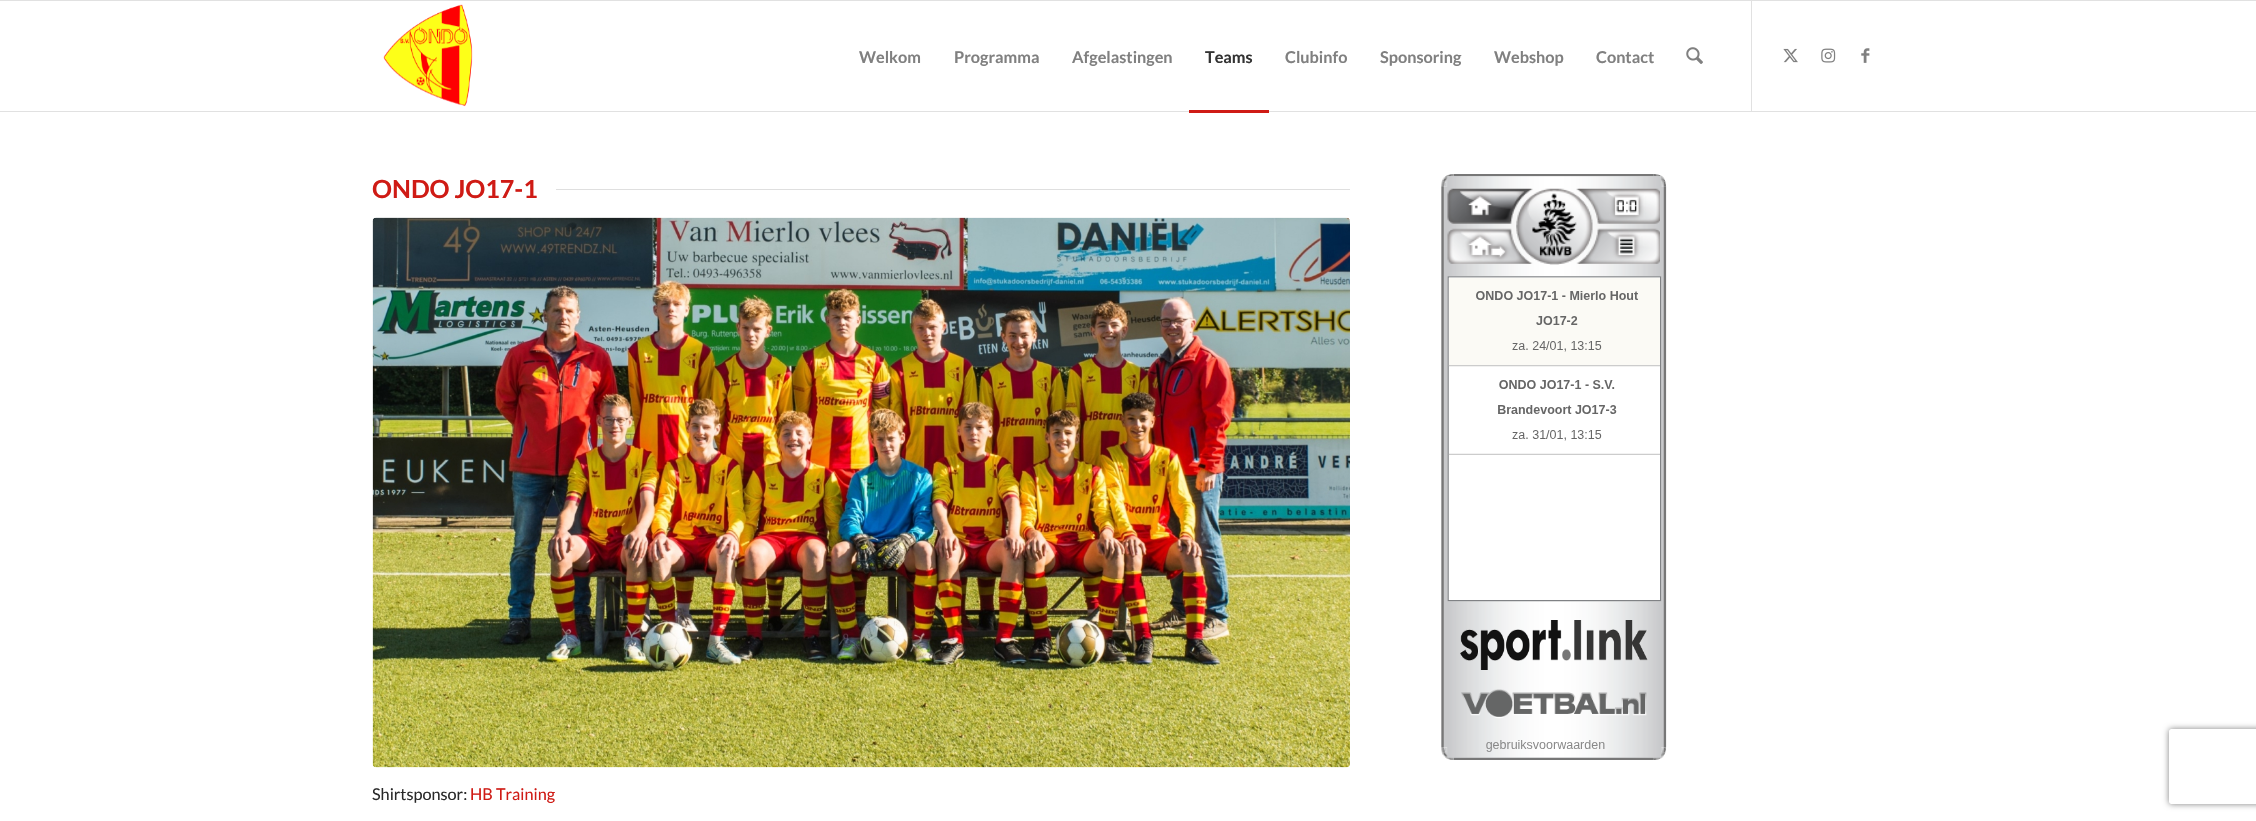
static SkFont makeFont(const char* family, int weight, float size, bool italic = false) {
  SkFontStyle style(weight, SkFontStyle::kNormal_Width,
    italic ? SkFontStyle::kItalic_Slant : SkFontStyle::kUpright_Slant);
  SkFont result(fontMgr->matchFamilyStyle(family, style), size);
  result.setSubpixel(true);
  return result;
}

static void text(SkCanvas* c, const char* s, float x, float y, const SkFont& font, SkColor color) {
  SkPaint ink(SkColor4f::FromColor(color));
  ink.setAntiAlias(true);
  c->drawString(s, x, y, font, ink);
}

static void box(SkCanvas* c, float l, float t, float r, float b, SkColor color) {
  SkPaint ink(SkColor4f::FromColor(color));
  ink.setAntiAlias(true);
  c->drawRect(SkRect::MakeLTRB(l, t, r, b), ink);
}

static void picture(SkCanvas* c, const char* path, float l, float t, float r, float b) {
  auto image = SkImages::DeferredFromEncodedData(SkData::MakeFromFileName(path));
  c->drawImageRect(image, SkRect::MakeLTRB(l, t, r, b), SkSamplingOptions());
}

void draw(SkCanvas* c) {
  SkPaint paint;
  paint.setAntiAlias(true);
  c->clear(0xffffffff);
  box(c, 0, 0, 2256, 1, 0xffe1e1e1);
  box(c, 0, 111, 2256, 112, 0xffe1e1e1);
  picture(c, "img_01.png", 383, 4, 473, 107);
  box(c, 1751, 1, 1752, 111, 0xffe1e1e1);
  SkFont face1 = makeFont("Lato", 700, 16.25f);
  text(c, "Welkom", 859, 63, face1, 0xff808080);
  text(c, "Programma", 954, 63, face1, 0xff808080);
  text(c, "Afgelastingen", 1072, 63, face1, 0xff808080);
  text(c, "Teams", 1205, 63, face1, 0xff333333);
  box(c, 1189, 110, 1269, 113, 0xffcf1b15);
  text(c, "Clubinfo", 1285, 63, face1, 0xff808080);
  text(c, "Sponsoring", 1380, 63, face1, 0xff808080);
  text(c, "Webshop", 1494, 63, face1, 0xff808080);
  text(c, "Contact", 1596, 63, face1, 0xff808080);
  picture(c, "img_02.png", 1686, 47, 1703, 64);
  picture(c, "img_03.png", 1783, 48, 1798, 63);
  picture(c, "img_04.png", 1821, 48, 1836, 63);
  picture(c, "img_05.png", 1861, 48, 1870, 63);
  SkFont face2 = makeFont("Lato", 700, 25);
  text(c, "ONDO JO17-1", 372, 198, face2, 0xffcf1b15);
  box(c, 556, 189, 1350, 190, 0xffdfdfdf);
  picture(c, "img_06.png", 372, 217, 1350, 768);
  SkFont face3 = makeFont("Lato", 400, 16.25f);
  text(c, "Shirtsponsor:", 372, 800, face3, 0xff292929);
  text(c, "HB Training", 470, 800, face3, 0xffcf1b15);
  picture(c, "img_07.png", 1441, 174, 1667, 760);
  c->save();
  c->clipPath(SkPathBuilder(SkPathFillType::kEvenOdd).moveTo(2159, 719).lineTo(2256, 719).lineTo(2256, 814).lineTo(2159, 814).close().moveTo(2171.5f, 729).lineTo(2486.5f, 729).cubicTo(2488, 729, 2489, 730, 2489, 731.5f).lineTo(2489, 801.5f).cubicTo(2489, 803, 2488, 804, 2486.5f, 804).lineTo(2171.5f, 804).cubicTo(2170, 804, 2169, 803, 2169, 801.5f).lineTo(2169, 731.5f).cubicTo(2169, 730, 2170, 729, 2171.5f, 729).close().detach(), true);
  paint.setColor(0xff808080);
  paint.setMaskFilter(SkMaskFilter::MakeBlur(kNormal_SkBlurStyle, 3));
  c->drawRoundRect(SkRect::MakeLTRB(2169, 729, 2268, 804), 2.5f, 2.5f, paint);
  paint.setMaskFilter(nullptr);
  c->restore();
}
